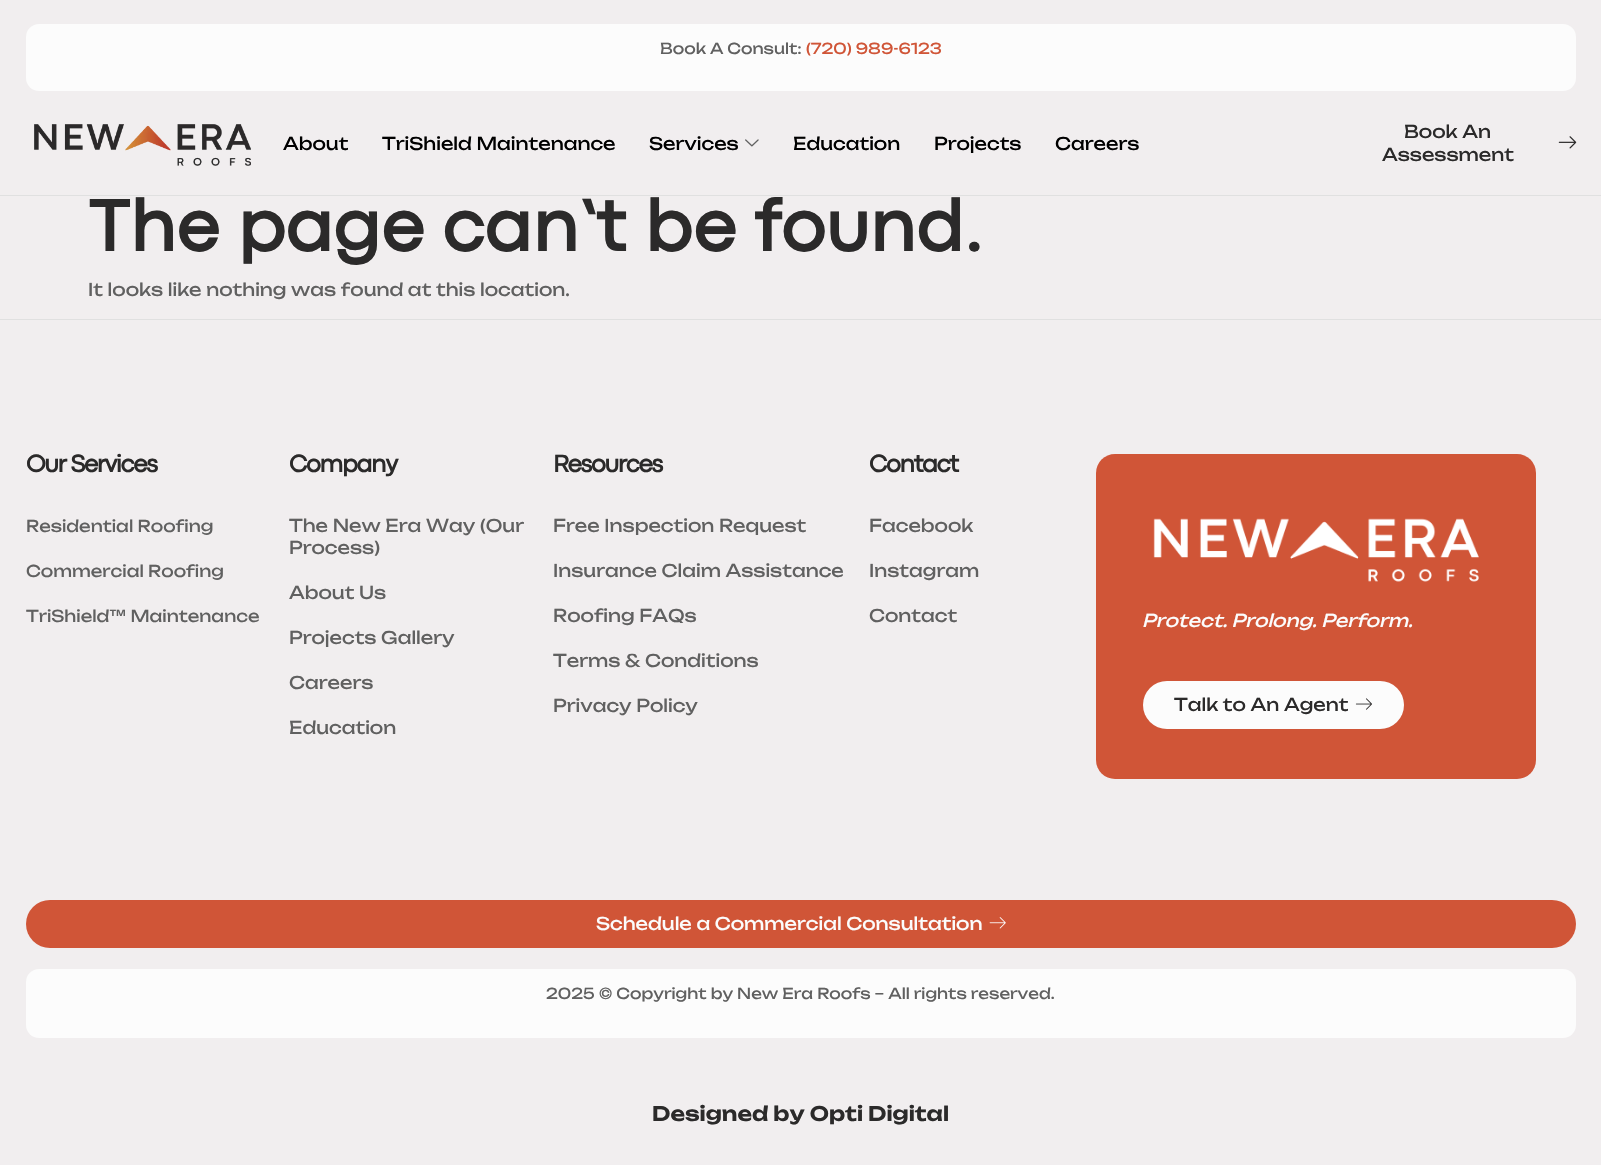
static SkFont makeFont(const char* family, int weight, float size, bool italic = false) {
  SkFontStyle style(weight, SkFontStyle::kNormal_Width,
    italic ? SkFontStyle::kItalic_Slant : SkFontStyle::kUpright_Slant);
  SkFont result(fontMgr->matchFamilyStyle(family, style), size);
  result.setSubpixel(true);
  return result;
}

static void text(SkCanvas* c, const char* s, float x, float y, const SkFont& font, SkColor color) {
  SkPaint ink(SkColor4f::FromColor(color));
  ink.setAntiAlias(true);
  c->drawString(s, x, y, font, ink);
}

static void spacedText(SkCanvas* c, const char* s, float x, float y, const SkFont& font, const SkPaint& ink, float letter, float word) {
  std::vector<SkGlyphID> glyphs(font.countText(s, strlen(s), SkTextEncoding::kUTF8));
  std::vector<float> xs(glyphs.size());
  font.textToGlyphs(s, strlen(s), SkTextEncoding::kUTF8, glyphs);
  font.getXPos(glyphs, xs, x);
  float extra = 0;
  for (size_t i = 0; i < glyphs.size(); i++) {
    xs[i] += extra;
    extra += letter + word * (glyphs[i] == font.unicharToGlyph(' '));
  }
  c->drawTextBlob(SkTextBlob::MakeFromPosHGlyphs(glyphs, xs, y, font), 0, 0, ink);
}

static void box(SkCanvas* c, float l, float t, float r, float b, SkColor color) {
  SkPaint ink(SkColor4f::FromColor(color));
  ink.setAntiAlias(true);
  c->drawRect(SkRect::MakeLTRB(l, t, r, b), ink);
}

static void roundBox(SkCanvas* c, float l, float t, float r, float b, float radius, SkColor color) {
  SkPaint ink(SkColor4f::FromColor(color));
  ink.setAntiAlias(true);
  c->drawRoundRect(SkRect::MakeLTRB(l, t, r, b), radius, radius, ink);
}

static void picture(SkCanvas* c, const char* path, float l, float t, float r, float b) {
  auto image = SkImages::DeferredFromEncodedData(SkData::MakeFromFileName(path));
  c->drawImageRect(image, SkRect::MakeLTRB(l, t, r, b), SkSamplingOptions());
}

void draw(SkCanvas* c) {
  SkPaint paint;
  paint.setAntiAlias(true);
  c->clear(0xfff1eeef);
  box(c, 0, 195, 1601, 196, 0xffe0e0e0);
  roundBox(c, 26, 24, 1576, 91, 13, 0xfffcfcfc);
  SkFont face1 = makeFont("Unbounded", 400, 15);
  text(c, "Book A Consult:", 660, 54, face1, 0xff606060);
  text(c, "(720) 989-6123", 806, 54, face1, 0xffd05537);
  picture(c, "img_01.png", 34, 124, 251, 166);
  SkFont face2 = makeFont("Unbounded", 400, 17.5f);
  text(c, "About", 283, 150, face2, 0xff000000);
  text(c, "TriShield Maintenance", 382, 150, face2, 0xff000000);
  text(c, "Services", 649, 150, face2, 0xff000000);
  picture(c, "img_02.png", 745, 139, 759, 147);
  text(c, "Education", 793, 150, face2, 0xff000000);
  text(c, "Projects", 934, 150, face2, 0xff000000);
  text(c, "Careers", 1055, 150, face2, 0xff000000);
  text(c, "Book An", 1404, 138, face2, 0xff2b2a2a);
  picture(c, "img_03.png", 1558, 136, 1577, 149);
  text(c, "Assessment", 1382, 161, face2, 0xff2b2a2a);
  SkFont face3 = makeFont("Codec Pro", 700, 75);
  text(c, "The page can’t be found.", 88, 251, face3, 0xff2b2a2a);
  text(c, "It looks like nothing was found at this location.", 88, 296, face2, 0xff606060);
  box(c, 0, 319, 1601, 320, 0xffe0e0e0);
  SkFont face4 = makeFont("Codec Pro", 700, 25);
  paint.setColor(0xff2b2a2a);
  spacedText(c, "Our Services", 26, 472, face4, paint, -1.4f, 0);
  SkFont face5 = makeFont("Unbounded", 400, 16.25f);
  text(c, "Residential Roofing", 26, 532, face5, 0xff606060);
  text(c, "Commercial Roofing", 26, 577, face5, 0xff606060);
  text(c, "TriShield™ Maintenance", 26, 622, face5, 0xff606060);
  spacedText(c, "Company", 289, 472, face4, paint, -1.4f, 0);
  text(c, "The New Era Way (Our", 289, 532, face2, 0xff606060);
  text(c, "Process)", 289, 554, face2, 0xff606060);
  text(c, "About Us", 289, 599, face2, 0xff606060);
  text(c, "Projects Gallery", 289, 644, face2, 0xff606060);
  text(c, "Careers", 289, 689, face2, 0xff606060);
  text(c, "Education", 289, 734, face2, 0xff606060);
  spacedText(c, "Resources", 553, 472, face4, paint, -1.4f, 0);
  text(c, "Free Inspection Request", 553, 532, face2, 0xff606060);
  text(c, "Insurance Claim Assistance", 553, 577, face2, 0xff606060);
  text(c, "Roofing FAQs", 553, 622, face2, 0xff606060);
  text(c, "Terms & Conditions", 553, 667, face2, 0xff606060);
  text(c, "Privacy Policy", 553, 712, face2, 0xff606060);
  spacedText(c, "Contact", 869, 472, face4, paint, -1.4f, 0);
  text(c, "Facebook", 869, 532, face2, 0xff606060);
  text(c, "Instagram", 869, 577, face2, 0xff606060);
  text(c, "Contact", 869, 622, face2, 0xff606060);
  roundBox(c, 1096, 454, 1536, 779, 19, 0xffd05537);
  picture(c, "img_04.png", 1153, 518, 1479, 582);
  SkFont face6 = makeFont("Unbounded", 400, 17.5f, true);
  text(c, "Protect. Prolong. Perform.", 1142, 627, face6, 0xfffcfcfc);
  roundBox(c, 1143, 681, 1404, 729, 24, 0xfffcfcfc);
  text(c, "Talk to An Agent", 1174, 711, face2, 0xff2b2a2a);
  picture(c, "img_05.png", 1355, 698, 1372, 710);
  roundBox(c, 26, 900, 1576, 948, 24, 0xffd05537);
  text(c, "Schedule a Commercial Consultation", 596, 930, face2, 0xfffcfcfc);
  picture(c, "img_06.png", 989, 917, 1006, 929);
  roundBox(c, 26, 969, 1576, 1038, 13, 0xfffcfcfc);
  text(c, "2025 © Copyright by New Era Roofs – All rights reserved.", 546, 999, face1, 0xff606060);
  SkFont face7 = makeFont("Unbounded", 600, 20);
  text(c, "Designed by Opti Digital", 652, 1121, face7, 0xff2b2a2a);
}
